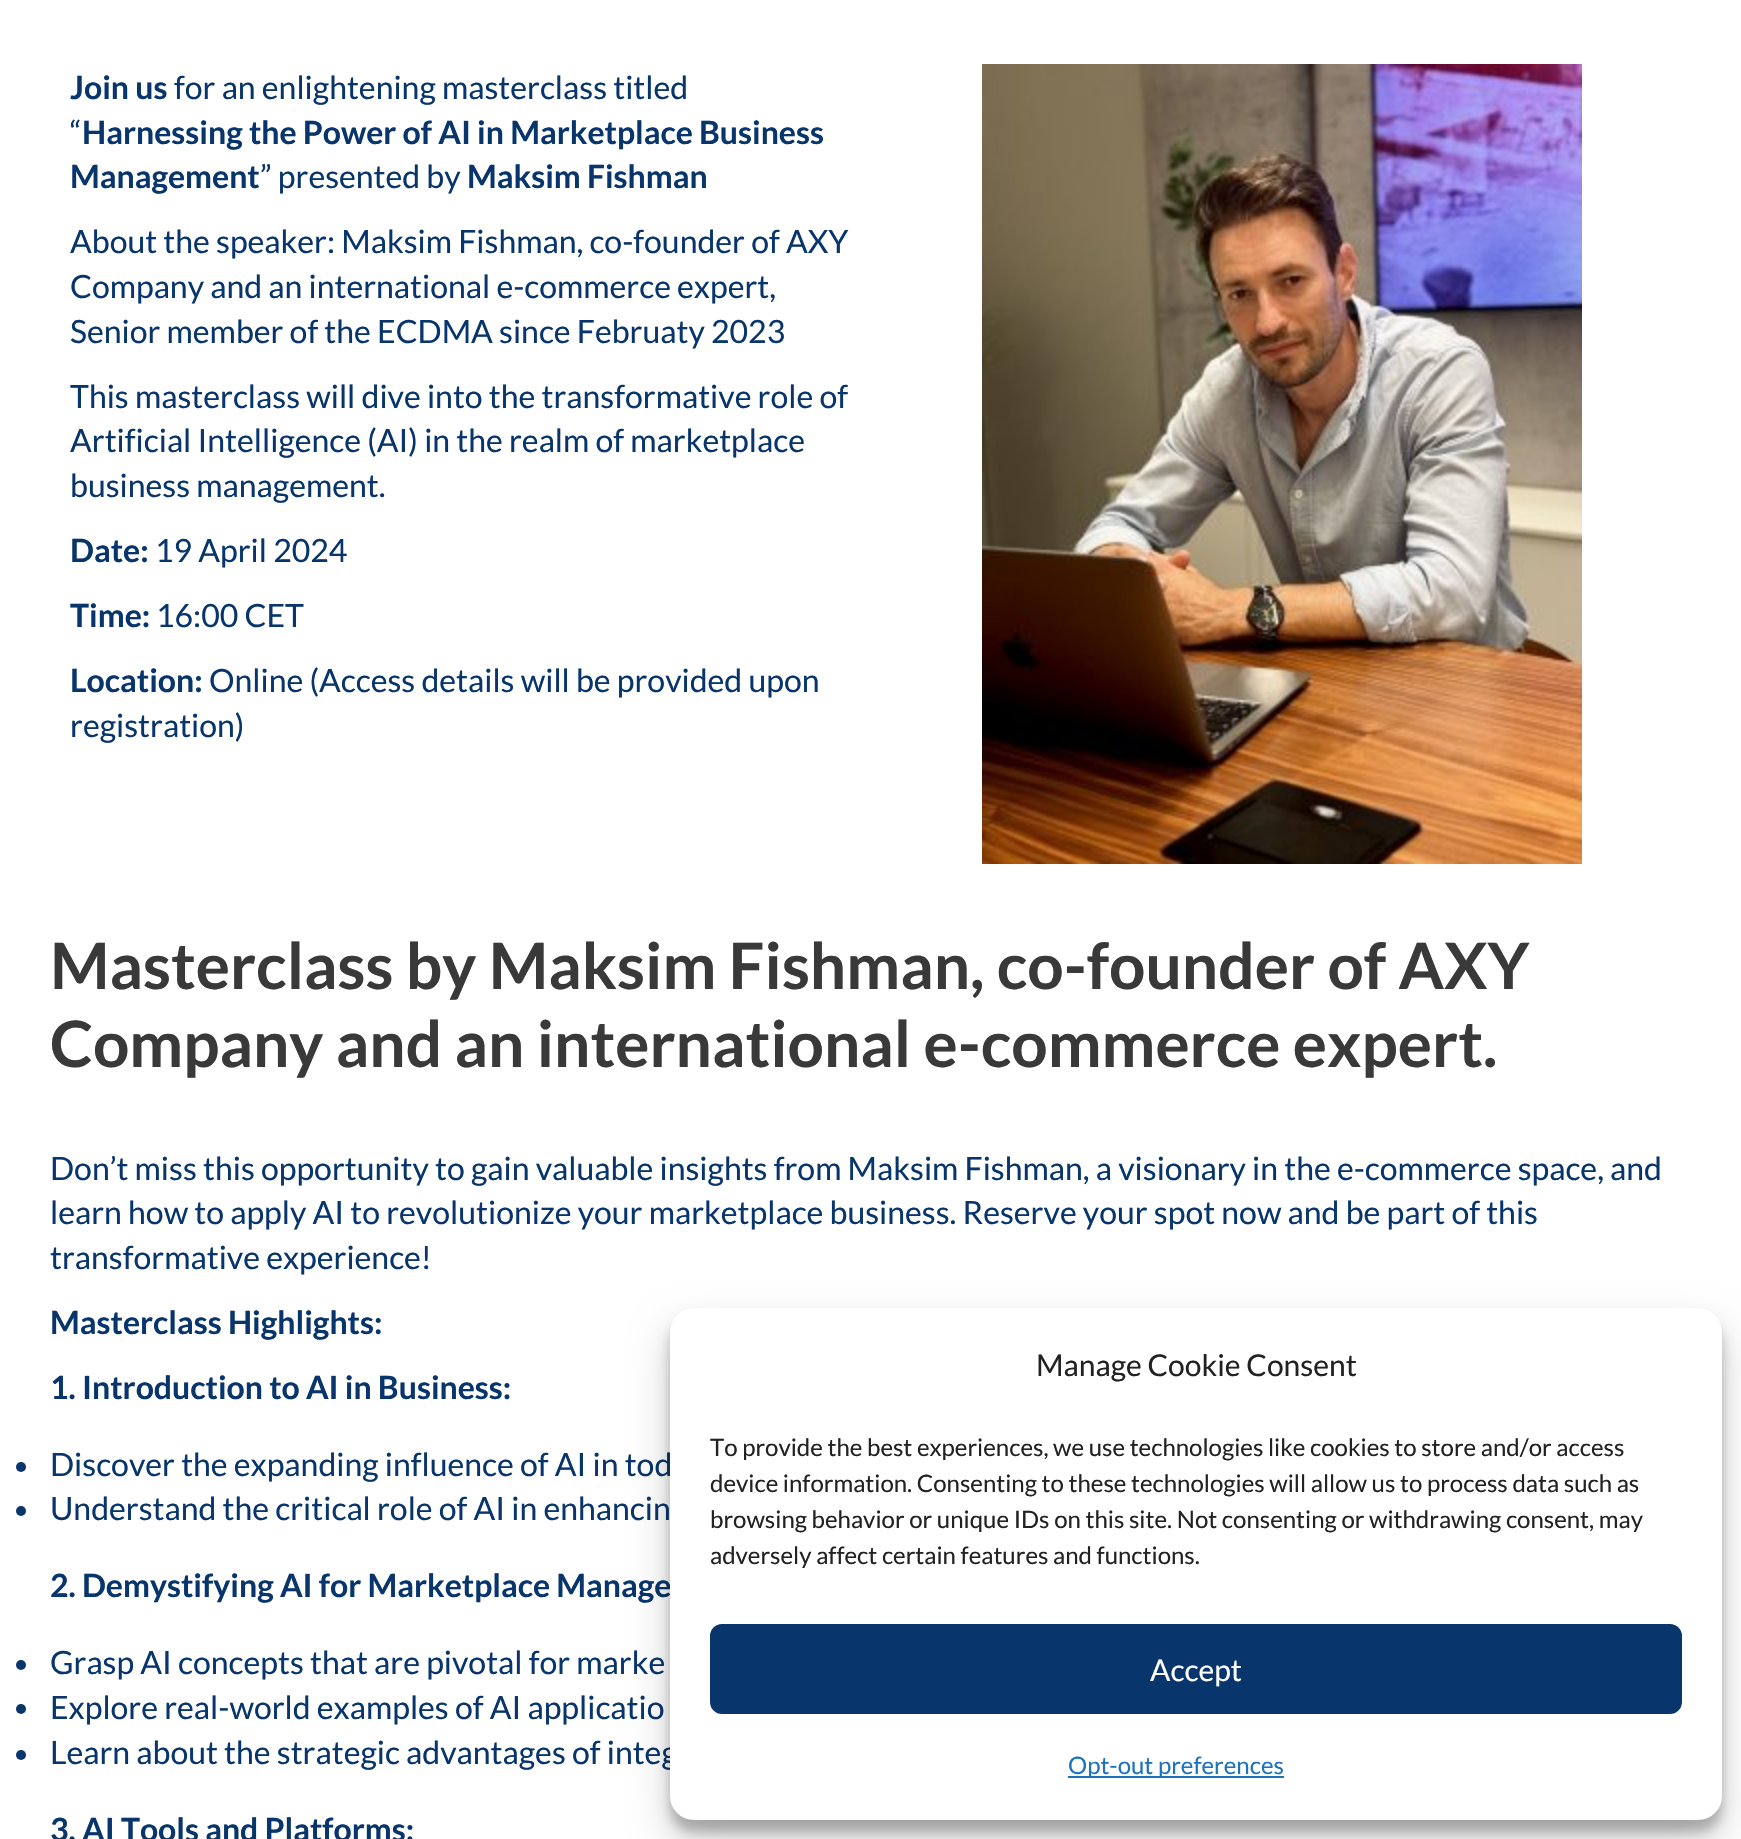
static SkFont makeFont(const char* family, int weight, float size, bool italic = false) {
  SkFontStyle style(weight, SkFontStyle::kNormal_Width,
    italic ? SkFontStyle::kItalic_Slant : SkFontStyle::kUpright_Slant);
  SkFont result(fontMgr->matchFamilyStyle(family, style), size);
  result.setSubpixel(true);
  return result;
}

static void text(SkCanvas* c, const char* s, float x, float y, const SkFont& font, SkColor color) {
  SkPaint ink(SkColor4f::FromColor(color));
  ink.setAntiAlias(true);
  c->drawString(s, x, y, font, ink);
}

static void box(SkCanvas* c, float l, float t, float r, float b, SkColor color) {
  SkPaint ink(SkColor4f::FromColor(color));
  ink.setAntiAlias(true);
  c->drawRect(SkRect::MakeLTRB(l, t, r, b), ink);
}

static void roundBox(SkCanvas* c, float l, float t, float r, float b, float radius, SkColor color) {
  SkPaint ink(SkColor4f::FromColor(color));
  ink.setAntiAlias(true);
  c->drawRoundRect(SkRect::MakeLTRB(l, t, r, b), radius, radius, ink);
}

static void picture(SkCanvas* c, const char* path, float l, float t, float r, float b) {
  auto image = SkImages::DeferredFromEncodedData(SkData::MakeFromFileName(path));
  c->drawImageRect(image, SkRect::MakeLTRB(l, t, r, b), SkSamplingOptions());
}

void draw(SkCanvas* c) {
  SkPaint paint;
  paint.setAntiAlias(true);
  c->clear(0xffffffff);
  SkFont face1 = makeFont("Lato", 700, 32);
  text(c, "Join us", 70, 99, face1, 0xff07356c);
  SkFont face2 = makeFont("Lato", 400, 32);
  text(c, "for an enlightening masterclass titled", 174, 99, face2, 0xff07356c);
  text(c, "“", 70, 144, face2, 0xff07356c);
  text(c, "Harnessing the Power of AI in Marketplace Business", 82, 144, face1, 0xff07356c);
  text(c, "Management", 70, 188, face1, 0xff07356c);
  text(c, "” presented by", 260, 188, face2, 0xff07356c);
  text(c, "Maksim Fishman", 467, 188, face1, 0xff07356c);
  text(c, "About the speaker: Maksim Fishman, co-founder of AXY", 70, 253, face2, 0xff07356c);
  text(c, "Company and an international e-commerce expert,", 70, 298, face2, 0xff07356c);
  text(c, "Senior member of the ECDMA since Februaty 2023", 70, 343, face2, 0xff07356c);
  text(c, "This masterclass will dive into the transformative role of", 70, 408, face2, 0xff07356c);
  text(c, "Artificial Intelligence (AI) in the realm of marketplace", 70, 452, face2, 0xff07356c);
  text(c, "business management.", 70, 497, face2, 0xff07356c);
  text(c, "Date:", 70, 562, face1, 0xff07356c);
  text(c, "19 April 2024", 155, 562, face2, 0xff07356c);
  text(c, "Time:", 70, 627, face1, 0xff07356c);
  text(c, "16:00 CET", 156, 627, face2, 0xff07356c);
  text(c, "Location:", 70, 692, face1, 0xff07356c);
  text(c, "Online (Access details will be provided upon", 209, 692, face2, 0xff07356c);
  text(c, "registration)", 70, 737, face2, 0xff07356c);
  picture(c, "img_01.png", 982, 64, 1582, 864);
  SkFont face3 = makeFont("Lato", 700, 64);
  text(c, "Masterclass by Maksim Fishman, co-founder of AXY", 50, 989, face3, 0xff393939);
  text(c, "Company and an international e-commerce expert.", 50, 1067, face3, 0xff393939);
  text(c, "Don’t miss this opportunity to gain valuable insights from Maksim Fishman, a visionary in the e-commerce space, and", 50, 1180, face2, 0xff07356c);
  text(c, "learn how to apply AI to revolutionize your marketplace business. Reserve your spot now and be part of this", 50, 1224, face2, 0xff07356c);
  text(c, "transformative experience!", 50, 1269, face2, 0xff07356c);
  text(c, "Masterclass Highlights:", 50, 1334, face1, 0xff07356c);
  text(c, "1. Introduction to AI in Business:", 50, 1399, face1, 0xff07356c);
  paint.setColor(0xff07356c);
  c->drawCircle(21, 1467, 5, paint);
  text(c, "Discover the expanding influence of AI in tod", 50, 1476, face2, 0xff07356c);
  c->drawCircle(21, 1511, 5, paint);
  text(c, "Understand the critical role of AI in enhancin", 50, 1520, face2, 0xff07356c);
  text(c, "2. Demystifying AI for Marketplace Manage", 50, 1597, face1, 0xff07356c);
  c->drawCircle(21, 1665, 5, paint);
  text(c, "Grasp AI concepts that are pivotal for marke", 50, 1674, face2, 0xff07356c);
  c->drawCircle(21, 1709, 5, paint);
  text(c, "Explore real-world examples of AI applicatio", 50, 1719, face2, 0xff07356c);
  c->drawCircle(21, 1755, 5, paint);
  text(c, "Learn about the strategic advantages of integ", 50, 1764, face2, 0xff07356c);
  text(c, "3. AI Tools and Platforms:", 50, 1841, face1, 0xff07356c);
  paint.setColor(0x3b000000);
  paint.setMaskFilter(SkMaskFilter::MakeBlur(kNormal_SkBlurStyle, 6));
  c->drawRoundRect(SkRect::MakeLTRB(670, 1320, 1722, 1832), 24, 24, paint);
  paint.setMaskFilter(nullptr);
  paint.setColor(0x30000000);
  paint.setMaskFilter(SkMaskFilter::MakeBlur(kNormal_SkBlurStyle, 20));
  c->drawRoundRect(SkRect::MakeLTRB(670, 1328, 1722, 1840), 24, 24, paint);
  paint.setMaskFilter(nullptr);
  roundBox(c, 670, 1308, 1722, 1820, 24, 0xffffffff);
  SkFont face4 = makeFont("Lato", 400, 30);
  text(c, "Manage Cookie Consent", 1036, 1376, face4, 0xff222222);
  SkFont face5 = makeFont("Lato", 400, 24);
  text(c, "To provide the best experiences, we use technologies like cookies to store and/or access", 710, 1456, face5, 0xff222222);
  text(c, "device information. Consenting to these technologies will allow us to process data such as", 710, 1492, face5, 0xff222222);
  text(c, "browsing behavior or unique IDs on this site. Not consenting or withdrawing consent, may", 710, 1528, face5, 0xff222222);
  text(c, "adversely affect certain features and functions.", 710, 1564, face5, 0xff222222);
  paint.setColor(0xff07356c);
  c->drawRoundRect(SkRect::MakeLTRB(711, 1625, 1681, 1713), 11, 11, paint);
  paint.setStyle(SkPaint::kStroke_Style);
  paint.setStrokeWidth(2);
  c->drawRoundRect(SkRect::MakeLTRB(711, 1625, 1681, 1713), 11, 11, paint);
  text(c, "Accept", 1150, 1681, face4, 0xffffffff);
  box(c, 1068, 1776, 1284, 1778, 0xff1e73be);
  text(c, "Opt-out preferences", 1068, 1774, face5, 0xff1e73be);
}
